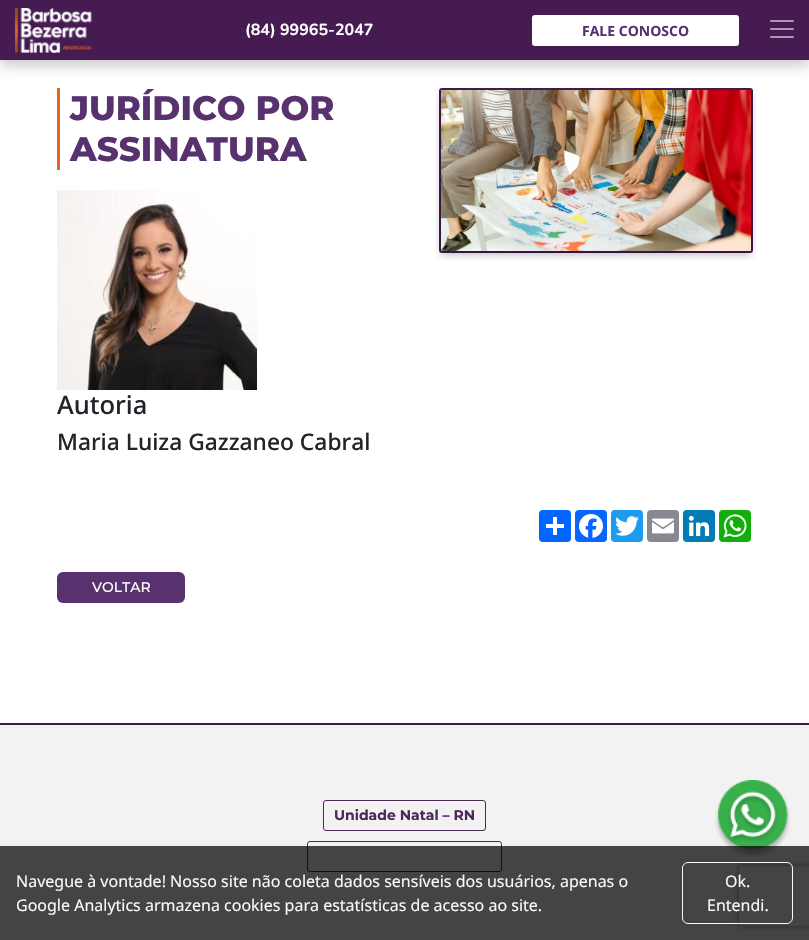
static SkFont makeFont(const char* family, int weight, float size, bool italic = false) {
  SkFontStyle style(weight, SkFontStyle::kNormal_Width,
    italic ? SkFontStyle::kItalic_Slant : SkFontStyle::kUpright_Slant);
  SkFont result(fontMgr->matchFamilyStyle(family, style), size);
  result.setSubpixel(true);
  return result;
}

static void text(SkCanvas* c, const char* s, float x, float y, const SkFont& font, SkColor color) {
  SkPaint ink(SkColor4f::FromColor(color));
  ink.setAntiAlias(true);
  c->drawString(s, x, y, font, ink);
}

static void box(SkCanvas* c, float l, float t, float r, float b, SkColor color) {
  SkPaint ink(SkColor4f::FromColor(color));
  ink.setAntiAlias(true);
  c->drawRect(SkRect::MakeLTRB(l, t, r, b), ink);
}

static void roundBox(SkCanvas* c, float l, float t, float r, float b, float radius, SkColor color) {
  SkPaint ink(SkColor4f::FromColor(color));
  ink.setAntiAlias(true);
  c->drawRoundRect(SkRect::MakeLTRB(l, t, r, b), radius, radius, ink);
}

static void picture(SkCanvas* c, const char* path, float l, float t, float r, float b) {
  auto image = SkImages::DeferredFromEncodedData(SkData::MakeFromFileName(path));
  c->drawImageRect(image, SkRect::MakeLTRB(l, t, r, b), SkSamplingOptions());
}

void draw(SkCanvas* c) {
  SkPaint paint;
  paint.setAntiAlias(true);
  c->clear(0xffffffff);
  paint.setColor(0x33000000);
  paint.setMaskFilter(SkMaskFilter::MakeBlur(kNormal_SkBlurStyle, 6));
  c->drawRect(SkRect::MakeLTRB(0, 6, 809, 66), paint);
  paint.setMaskFilter(nullptr);
  box(c, 0, 0, 809, 60, 0xff451b52);
  picture(c, "img_01.png", 15, 8, 92, 53);
  SkFont face1 = makeFont("Nunito", 700, 16);
  text(c, "(84) 99965-2047", 245, 35, face1, 0xffffffff);
  roundBox(c, 532, 15, 739, 46, 3, 0xffffffff);
  SkFont face2 = makeFont("Open Sans", 700, 14);
  text(c, "FALE CONOSCO", 582, 36, face2, 0xff58326f);
  picture(c, "img_02.png", 770, 20, 794, 38);
  box(c, 57, 88, 60, 170, 0xffe8651f);
  SkFont face3 = makeFont("Montserrat", 800, 34);
  text(c, "JURÍDICO POR", 70, 120, face3, 0xff58326f);
  text(c, "ASSINATURA", 70, 161, face3, 0xff58326f);
  picture(c, "img_03.png", 57, 190, 257, 390);
  SkFont face4 = makeFont("Noto Sans", 500, 25.5f);
  text(c, "Autoria", 57, 414, face4, 0xff212529);
  SkFont face5 = makeFont("Noto Sans", 500, 22.8f);
  text(c, "Maria Luiza Gazzaneo Cabral", 57, 450, face5, 0xff212529);
  paint.setStyle(SkPaint::kStroke_Style);
  paint.setStrokeWidth(2);
  paint.setColor(0xff411a4e);
  c->drawRoundRect(SkRect::MakeLTRB(440, 89, 752, 252), 2, 2, paint);
  picture(c, "img_04.png", 435, 90, 757, 261);
  roundBox(c, 539, 510, 571, 542, 4, 0xff0166ff);
  box(c, 553, 517, 557, 535, 0xffffffff);
  box(c, 546, 524, 564, 528, 0xffffffff);
  roundBox(c, 575, 510, 607, 542, 4, 0xff0866ff);
  picture(c, "img_05.png", 579, 514, 603, 538);
  roundBox(c, 611, 510, 643, 542, 4, 0xff1d9bf0);
  picture(c, "img_06.png", 615, 516, 639, 536);
  roundBox(c, 647, 510, 679, 542, 4, 0xff888990);
  picture(c, "img_07.png", 652, 518, 674, 534);
  roundBox(c, 683, 510, 715, 542, 4, 0xff007bb5);
  picture(c, "img_08.png", 688, 515, 710, 537);
  roundBox(c, 719, 510, 751, 542, 4, 0xff12af0a);
  picture(c, "img_09.png", 723, 514, 747, 538);
  roundBox(c, 57, 572, 185, 603, 6, 0xff58326f);
  SkFont face6 = makeFont("Montserrat", 500, 14);
  text(c, "VOLTAR", 92, 592, face6, 0xffffffff);
  box(c, 0, 725, 809, 940, 0xfff2f2f2);
  box(c, 0, 723, 809, 725, 0xff391843);
  paint.setStrokeWidth(1);
  paint.setColor(0xff4c2757);
  c->drawRoundRect(SkRect::MakeLTRB(323.5f, 800.5f, 485.5f, 830.5f), 2.5f, 2.5f, paint);
  SkFont face7 = makeFont("Montserrat", 700, 14);
  text(c, "Unidade Natal – RN", 334, 820, face7, 0xff4c2757);
  c->drawRoundRect(SkRect::MakeLTRB(307.5f, 841.5f, 501.5f, 871.5f), 2.5f, 2.5f, paint);
  picture(c, "img_10.png", 715, 780, 790, 857);
  c->save();
  c->clipPath(SkPathBuilder(SkPathFillType::kEvenOdd).moveTo(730, 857).lineTo(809, 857).lineTo(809, 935).lineTo(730, 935).close().moveTo(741, 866).lineTo(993, 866).cubicTo(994, 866, 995, 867, 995, 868).lineTo(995, 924).cubicTo(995, 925, 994, 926, 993, 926).lineTo(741, 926).cubicTo(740, 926, 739, 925, 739, 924).lineTo(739, 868).cubicTo(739, 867, 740, 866, 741, 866).close().detach(), true);
  paint.setStyle(SkPaint::kFill_Style);
  paint.setColor(0xff808080);
  paint.setMaskFilter(SkMaskFilter::MakeBlur(kNormal_SkBlurStyle, 2.5f));
  c->drawRoundRect(SkRect::MakeLTRB(739, 866, 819, 926), 2, 2, paint);
  paint.setMaskFilter(nullptr);
  c->restore();
  box(c, 0, 846, 809, 940, 0xb8000000);
  SkFont face8 = makeFont("Noto Sans", 400, 16);
  text(c, "Navegue à vontade! Nosso site não coleta dados sensíveis dos usuários, apenas o", 16, 887, face8, 0xfff8f9fa);
  text(c, "Google Analytics armazena cookies para estatísticas de acesso ao site.", 16, 911, face8, 0xfff8f9fa);
  paint.setStyle(SkPaint::kStroke_Style);
  paint.setColor(0xfff8f9fa);
  c->drawRoundRect(SkRect::MakeLTRB(682.5f, 862.5f, 792.5f, 923.5f), 5.5f, 5.5f, paint);
  text(c, "Ok.", 725, 887, face8, 0xfff8f9fa);
  text(c, "Entendi.", 707, 911, face8, 0xfff8f9fa);
}
